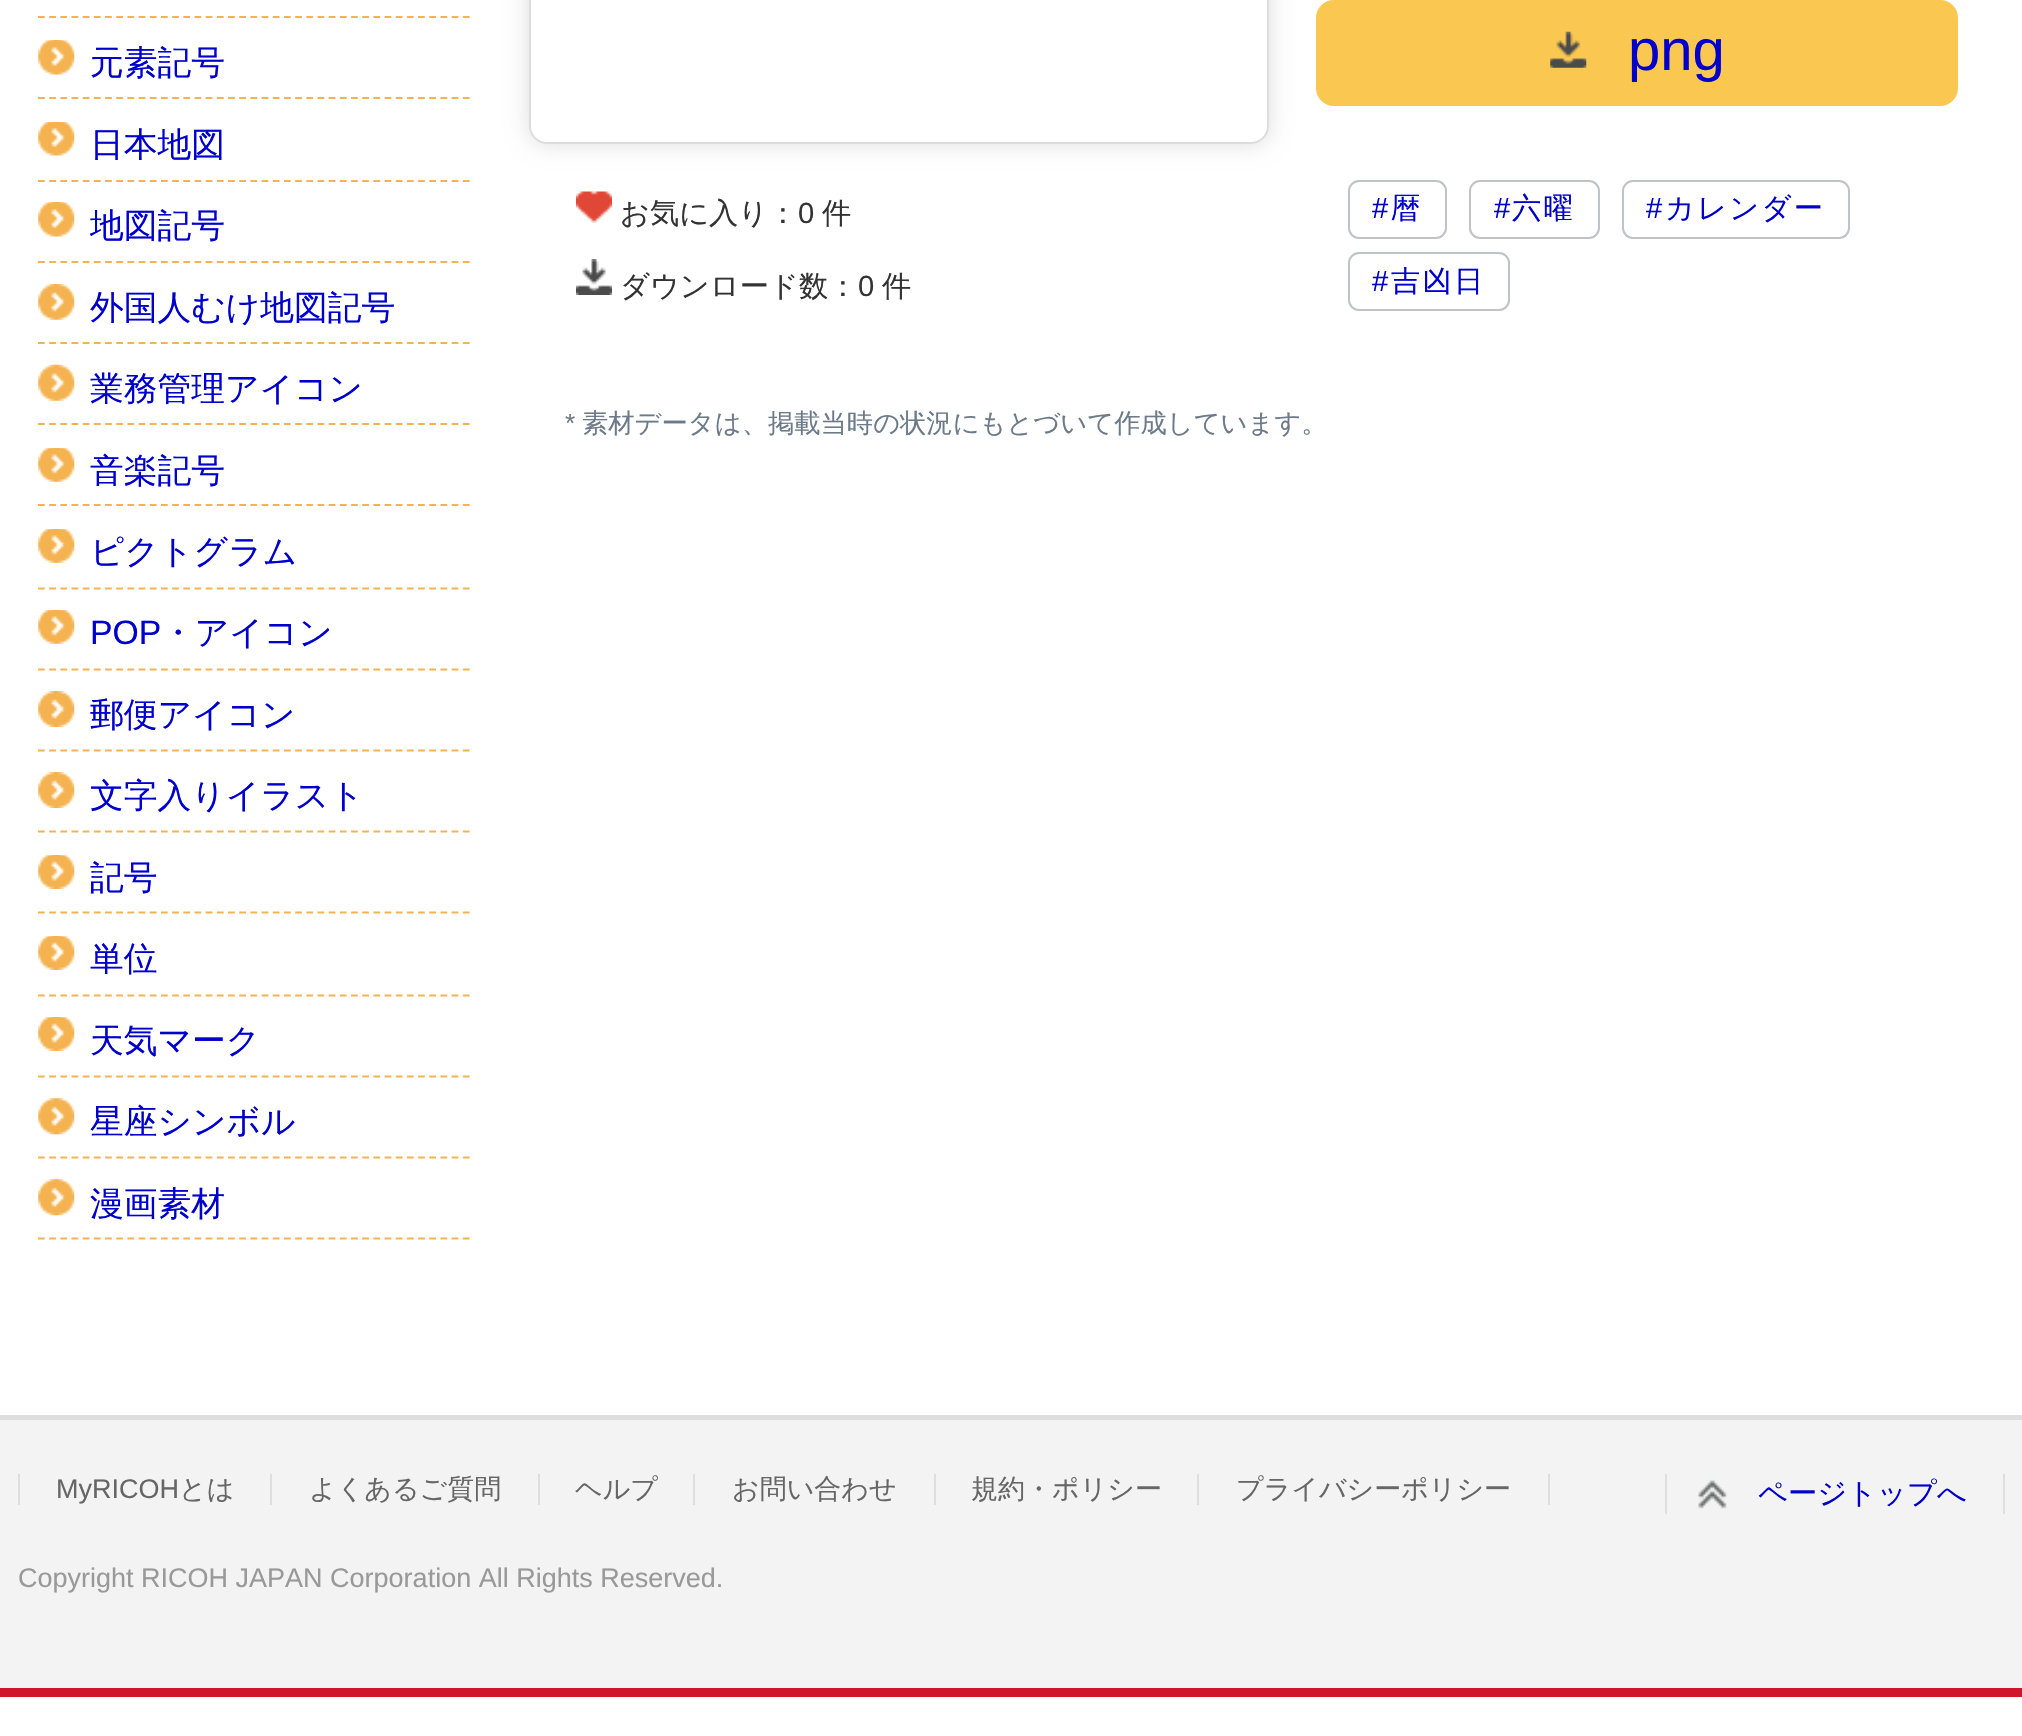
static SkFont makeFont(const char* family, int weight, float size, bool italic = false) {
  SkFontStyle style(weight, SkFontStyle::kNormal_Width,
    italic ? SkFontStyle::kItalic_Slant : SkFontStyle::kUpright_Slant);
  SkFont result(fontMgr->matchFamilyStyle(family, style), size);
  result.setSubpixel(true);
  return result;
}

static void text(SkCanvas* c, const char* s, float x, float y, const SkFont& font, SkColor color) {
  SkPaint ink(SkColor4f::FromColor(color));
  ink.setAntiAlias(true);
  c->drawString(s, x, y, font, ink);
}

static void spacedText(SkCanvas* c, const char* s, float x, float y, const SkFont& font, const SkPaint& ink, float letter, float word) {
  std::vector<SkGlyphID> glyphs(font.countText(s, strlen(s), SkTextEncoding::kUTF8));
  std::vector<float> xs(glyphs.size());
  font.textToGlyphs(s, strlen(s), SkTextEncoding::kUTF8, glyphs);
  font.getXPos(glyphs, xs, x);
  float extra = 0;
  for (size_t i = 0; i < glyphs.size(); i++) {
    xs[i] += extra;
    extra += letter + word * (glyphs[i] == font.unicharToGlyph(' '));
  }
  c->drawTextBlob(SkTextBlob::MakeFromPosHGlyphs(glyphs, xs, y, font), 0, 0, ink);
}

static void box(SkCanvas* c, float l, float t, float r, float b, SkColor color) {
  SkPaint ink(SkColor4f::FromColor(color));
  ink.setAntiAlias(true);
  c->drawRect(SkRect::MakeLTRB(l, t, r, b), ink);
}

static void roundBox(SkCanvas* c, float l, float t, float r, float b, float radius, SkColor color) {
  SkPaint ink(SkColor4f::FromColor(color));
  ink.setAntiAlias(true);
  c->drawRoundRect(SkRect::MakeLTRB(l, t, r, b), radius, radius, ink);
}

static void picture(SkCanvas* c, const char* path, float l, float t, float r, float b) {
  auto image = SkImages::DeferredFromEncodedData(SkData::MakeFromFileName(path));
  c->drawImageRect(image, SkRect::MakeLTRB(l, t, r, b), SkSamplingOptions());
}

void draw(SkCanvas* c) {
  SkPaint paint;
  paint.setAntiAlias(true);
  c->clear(0xffffffff);
  paint.setStyle(SkPaint::kStroke_Style);
  paint.setStrokeWidth(2.2f);
  paint.setColor(0xfff4b350);
  paint.setPathEffect(SkDashPathEffect::Make({{6.75f, 4.43f}}, 0));
  c->drawPath(SkPathBuilder().moveTo(38, 17).lineTo(470, 17).detach(), paint);
  paint.setPathEffect(nullptr);
  paint.setPathEffect(SkDashPathEffect::Make({{6.75f, 4.43f}}, 0));
  c->drawPath(SkPathBuilder().moveTo(38, 98).lineTo(470, 98).detach(), paint);
  paint.setPathEffect(nullptr);
  picture(c, "img_01.png", 38, 40, 75, 75);
  SkFont face1 = makeFont("WenQuanYi Zen Hei", 500, 33.75f);
  text(c, "元素記号", 90, 74, face1, 0xff0000cc);
  paint.setPathEffect(SkDashPathEffect::Make({{6.75f, 4.43f}}, 0));
  c->drawPath(SkPathBuilder().moveTo(38, 181).lineTo(470, 181).detach(), paint);
  paint.setPathEffect(nullptr);
  picture(c, "img_02.png", 38, 122, 75, 156);
  text(c, "日本地図", 90, 156, face1, 0xff0000cc);
  paint.setPathEffect(SkDashPathEffect::Make({{6.75f, 4.43f}}, 0));
  c->drawPath(SkPathBuilder().moveTo(38, 262).lineTo(470, 262).detach(), paint);
  paint.setPathEffect(nullptr);
  picture(c, "img_01.png", 38, 202, 75, 237);
  text(c, "地図記号", 90, 237, face1, 0xff0000cc);
  paint.setPathEffect(SkDashPathEffect::Make({{6.75f, 4.43f}}, 0));
  c->drawPath(SkPathBuilder().moveTo(38, 343).lineTo(470, 343).detach(), paint);
  paint.setPathEffect(nullptr);
  picture(c, "img_03.png", 38, 284, 75, 320);
  text(c, "外国人むけ地図記号", 90, 319, face1, 0xff0000cc);
  paint.setPathEffect(SkDashPathEffect::Make({{6.75f, 4.43f}}, 0));
  c->drawPath(SkPathBuilder().moveTo(38, 424).lineTo(470, 424).detach(), paint);
  paint.setPathEffect(nullptr);
  picture(c, "img_04.png", 38, 364, 75, 401);
  text(c, "業務管理アイコン", 90, 400, face1, 0xff0000cc);
  paint.setPathEffect(SkDashPathEffect::Make({{6.75f, 4.43f}}, 0));
  c->drawPath(SkPathBuilder().moveTo(38, 505).lineTo(470, 505).detach(), paint);
  paint.setPathEffect(nullptr);
  picture(c, "img_05.png", 38, 448, 75, 482);
  text(c, "音楽記号", 90, 482, face1, 0xff0000cc);
  paint.setPathEffect(SkDashPathEffect::Make({{6.75f, 4.43f}}, 0));
  c->drawPath(SkPathBuilder().moveTo(38, 588.5f).lineTo(470, 588.5f).detach(), paint);
  paint.setPathEffect(nullptr);
  picture(c, "img_05.png", 38, 529, 75, 563);
  text(c, "ピクトグラム", 90, 563, face1, 0xff0000cc);
  paint.setPathEffect(SkDashPathEffect::Make({{6.75f, 4.43f}}, 0));
  c->drawPath(SkPathBuilder().moveTo(38, 669.5f).lineTo(470, 669.5f).detach(), paint);
  paint.setPathEffect(nullptr);
  picture(c, "img_05.png", 38, 610, 75, 644);
  SkFont face2 = makeFont("Liberation Sans", 400, 33.75f);
  text(c, "POP", 90, 644, face2, 0xff0000cc);
  text(c, "・アイコン", 161, 644, face1, 0xff0000cc);
  paint.setPathEffect(SkDashPathEffect::Make({{6.75f, 4.43f}}, 0));
  c->drawPath(SkPathBuilder().moveTo(38, 750.5f).lineTo(470, 750.5f).detach(), paint);
  paint.setPathEffect(nullptr);
  picture(c, "img_06.png", 38, 691, 75, 727);
  text(c, "郵便アイコン", 90, 726, face1, 0xff0000cc);
  paint.setPathEffect(SkDashPathEffect::Make({{6.75f, 4.43f}}, 0));
  c->drawPath(SkPathBuilder().moveTo(38, 831.5f).lineTo(470, 831.5f).detach(), paint);
  paint.setPathEffect(nullptr);
  picture(c, "img_06.png", 38, 772, 75, 808);
  text(c, "文字入りイラスト", 90, 807, face1, 0xff0000cc);
  paint.setPathEffect(SkDashPathEffect::Make({{6.75f, 4.43f}}, 0));
  c->drawPath(SkPathBuilder().moveTo(38, 912.5f).lineTo(470, 912.5f).detach(), paint);
  paint.setPathEffect(nullptr);
  picture(c, "img_07.png", 38, 855, 75, 889);
  text(c, "記号", 90, 889, face1, 0xff0000cc);
  paint.setPathEffect(SkDashPathEffect::Make({{6.75f, 4.43f}}, 0));
  c->drawPath(SkPathBuilder().moveTo(38, 995.5f).lineTo(470, 995.5f).detach(), paint);
  paint.setPathEffect(nullptr);
  picture(c, "img_07.png", 38, 936, 75, 970);
  text(c, "単位", 90, 970, face1, 0xff0000cc);
  paint.setPathEffect(SkDashPathEffect::Make({{6.75f, 4.43f}}, 0));
  c->drawPath(SkPathBuilder().moveTo(38, 1076.5f).lineTo(470, 1076.5f).detach(), paint);
  paint.setPathEffect(nullptr);
  picture(c, "img_07.png", 38, 1017, 75, 1051);
  text(c, "天気マーク", 90, 1052, face1, 0xff0000cc);
  paint.setPathEffect(SkDashPathEffect::Make({{6.75f, 4.43f}}, 0));
  c->drawPath(SkPathBuilder().moveTo(38, 1157.5f).lineTo(470, 1157.5f).detach(), paint);
  paint.setPathEffect(nullptr);
  picture(c, "img_08.png", 38, 1098, 75, 1135);
  text(c, "星座シンボル", 90, 1133, face1, 0xff0000cc);
  paint.setPathEffect(SkDashPathEffect::Make({{6.75f, 4.43f}}, 0));
  c->drawPath(SkPathBuilder().moveTo(38, 1238.5f).lineTo(470, 1238.5f).detach(), paint);
  paint.setPathEffect(nullptr);
  picture(c, "img_08.png", 38, 1179, 75, 1216);
  text(c, "漫画素材", 90, 1215, face1, 0xff0000cc);
  c->save();
  c->clipPath(SkPathBuilder(SkPathFillType::kEvenOdd).moveTo(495, 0).lineTo(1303, 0).lineTo(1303, 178).lineTo(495, 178).close().moveTo(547, -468).lineTo(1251, -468).cubicTo(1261, -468, 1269, -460, 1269, -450).lineTo(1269, 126).cubicTo(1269, 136, 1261, 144, 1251, 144).lineTo(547, 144).cubicTo(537, 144, 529, 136, 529, 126).lineTo(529, -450).cubicTo(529, -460, 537, -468, 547, -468).close().detach(), true);
  paint.setStyle(SkPaint::kFill_Style);
  paint.setColor(0xffdddddd);
  paint.setMaskFilter(SkMaskFilter::MakeBlur(kNormal_SkBlurStyle, 11));
  c->drawRoundRect(SkRect::MakeLTRB(529, -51, 1269, 144), 18, 18, paint);
  paint.setMaskFilter(nullptr);
  c->restore();
  paint.setStyle(SkPaint::kStroke_Style);
  paint.setStrokeWidth(2);
  c->drawRoundRect(SkRect::MakeLTRB(530, -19, 1268, 143), 17, 17, paint);
  roundBox(c, 1316, 0, 1958, 106, 18, 0xfffac751);
  picture(c, "img_09.png", 1550, 31, 1587, 68);
  SkFont face3 = makeFont("Liberation Sans", 400, 58);
  text(c, "png", 1628, 70, face3, 0xff0000cc);
  picture(c, "img_10.png", 576, 191, 612, 223);
  SkFont face4 = makeFont("WenQuanYi Zen Hei", 500, 29.25f);
  text(c, "お気に入り：", 620, 223, face4, 0xff333333);
  SkFont face5 = makeFont("Liberation Sans", 400, 29.25f);
  text(c, "0", 798, 223, face5, 0xff333333);
  text(c, "件", 822, 223, face4, 0xff333333);
  picture(c, "img_11.png", 576, 259, 612, 295);
  text(c, "ダウンロード数：", 620, 296, face4, 0xff333333);
  text(c, "0", 858, 296, face5, 0xff333333);
  text(c, "件", 882, 296, face4, 0xff333333);
  paint.setColor(0xffbdc3c7);
  c->drawRoundRect(SkRect::MakeLTRB(1349, 181, 1446, 238), 10, 10, paint);
  paint.setStyle(SkPaint::kFill_Style);
  paint.setColor(0xff0000cc);
  spacedText(c, "#", 1372, 218, face5, paint, 2.25f, 0);
  spacedText(c, "暦", 1391, 218, face4, paint, 2.25f, 0);
  paint.setStyle(SkPaint::kStroke_Style);
  paint.setColor(0xffbdc3c7);
  c->drawRoundRect(SkRect::MakeLTRB(1470, 181, 1599, 238), 10, 10, paint);
  paint.setStyle(SkPaint::kFill_Style);
  paint.setColor(0xff0000cc);
  spacedText(c, "#", 1494, 218, face5, paint, 2.25f, 0);
  spacedText(c, "六曜", 1512, 218, face4, paint, 2.25f, 0);
  paint.setStyle(SkPaint::kStroke_Style);
  paint.setColor(0xffbdc3c7);
  c->drawRoundRect(SkRect::MakeLTRB(1623, 181, 1849, 238), 10, 10, paint);
  paint.setStyle(SkPaint::kFill_Style);
  paint.setColor(0xff0000cc);
  spacedText(c, "#", 1646, 218, face5, paint, 2.25f, 0);
  spacedText(c, "カレンダー", 1665, 218, face4, paint, 2.25f, 0);
  paint.setStyle(SkPaint::kStroke_Style);
  paint.setColor(0xffbdc3c7);
  c->drawRoundRect(SkRect::MakeLTRB(1349, 253, 1509, 310), 10, 10, paint);
  paint.setStyle(SkPaint::kFill_Style);
  paint.setColor(0xff0000cc);
  spacedText(c, "#", 1372, 291, face5, paint, 2.25f, 0);
  spacedText(c, "吉凶日", 1391, 291, face4, paint, 2.25f, 0);
  SkFont face6 = makeFont("Liberation Sans", 400, 26.3f);
  text(c, "*", 565, 432, face6, 0xff6c7a89);
  SkFont face7 = makeFont("WenQuanYi Zen Hei", 500, 26.3f);
  text(c, "素材データは、掲載当時の状況にもとづいて作成しています。", 582, 432, face7, 0xff6c7a89);
  box(c, 0, 1420, 2022, 1688, 0xfff3f3f3);
  box(c, 0, 1415, 2022, 1420, 0xffdedede);
  box(c, 0, 1688, 2022, 1697, 0xffcf142b);
  box(c, 270, 1474, 272, 1505, 0xffdedede);
  box(c, 18, 1474, 20, 1505, 0xffdedede);
  SkFont face8 = makeFont("Liberation Sans", 400, 27);
  text(c, "MyRICOH", 56, 1498, face8, 0xff666666);
  SkFont face9 = makeFont("WenQuanYi Zen Hei", 500, 27);
  text(c, "とは", 179, 1498, face9, 0xff666666);
  box(c, 538, 1474, 540, 1505, 0xffdedede);
  text(c, "よくあるご質問", 309, 1498, face9, 0xff666666);
  box(c, 693, 1474, 695, 1505, 0xffdedede);
  text(c, "ヘルプ", 575, 1498, face9, 0xff666666);
  box(c, 934, 1474, 936, 1505, 0xffdedede);
  text(c, "お問い合わせ", 732, 1498, face9, 0xff666666);
  box(c, 1197, 1474, 1199, 1505, 0xffdedede);
  text(c, "規約・ポリシー", 971, 1498, face9, 0xff666666);
  box(c, 1548, 1474, 1550, 1505, 0xffdedede);
  text(c, "プライバシーポリシー", 1236, 1498, face9, 0xff666666);
  box(c, 2003, 1474, 2005, 1514, 0xffdedede);
  box(c, 1665, 1474, 1667, 1514, 0xffdedede);
  picture(c, "img_12.png", 1698, 1480, 1727, 1509);
  text(c, "ページトップへ", 1758, 1503, face4, 0xff0000cc);
  text(c, "Copyright RICOH JAPAN Corporation All Rights Reserved.", 18, 1587, face8, 0xff999999);
}
